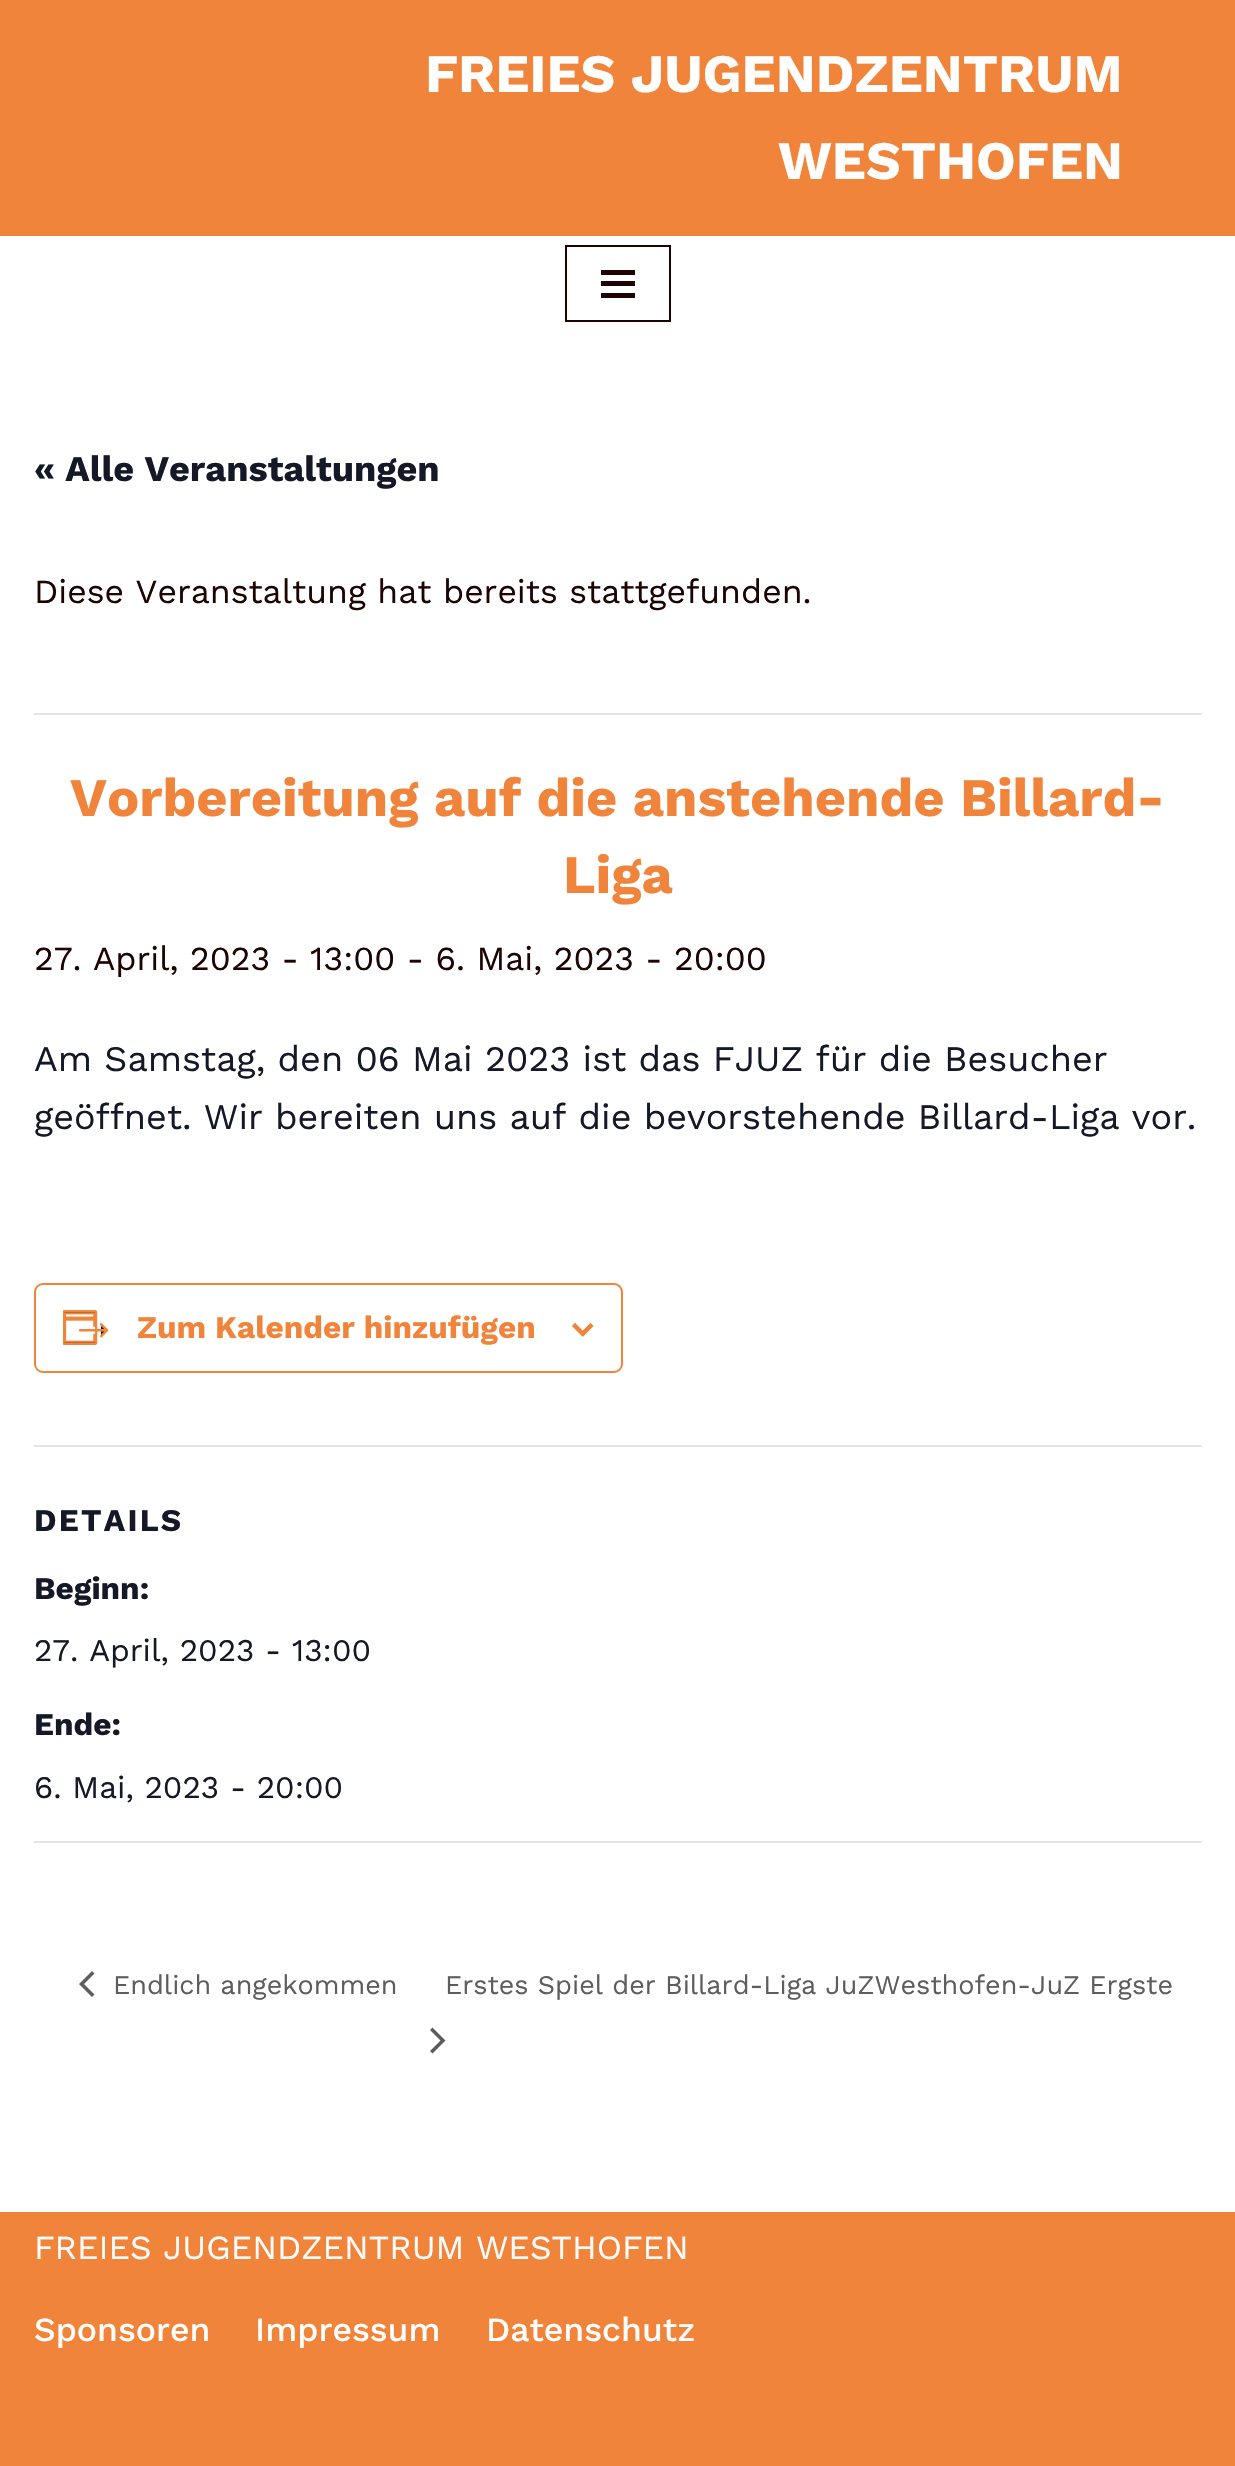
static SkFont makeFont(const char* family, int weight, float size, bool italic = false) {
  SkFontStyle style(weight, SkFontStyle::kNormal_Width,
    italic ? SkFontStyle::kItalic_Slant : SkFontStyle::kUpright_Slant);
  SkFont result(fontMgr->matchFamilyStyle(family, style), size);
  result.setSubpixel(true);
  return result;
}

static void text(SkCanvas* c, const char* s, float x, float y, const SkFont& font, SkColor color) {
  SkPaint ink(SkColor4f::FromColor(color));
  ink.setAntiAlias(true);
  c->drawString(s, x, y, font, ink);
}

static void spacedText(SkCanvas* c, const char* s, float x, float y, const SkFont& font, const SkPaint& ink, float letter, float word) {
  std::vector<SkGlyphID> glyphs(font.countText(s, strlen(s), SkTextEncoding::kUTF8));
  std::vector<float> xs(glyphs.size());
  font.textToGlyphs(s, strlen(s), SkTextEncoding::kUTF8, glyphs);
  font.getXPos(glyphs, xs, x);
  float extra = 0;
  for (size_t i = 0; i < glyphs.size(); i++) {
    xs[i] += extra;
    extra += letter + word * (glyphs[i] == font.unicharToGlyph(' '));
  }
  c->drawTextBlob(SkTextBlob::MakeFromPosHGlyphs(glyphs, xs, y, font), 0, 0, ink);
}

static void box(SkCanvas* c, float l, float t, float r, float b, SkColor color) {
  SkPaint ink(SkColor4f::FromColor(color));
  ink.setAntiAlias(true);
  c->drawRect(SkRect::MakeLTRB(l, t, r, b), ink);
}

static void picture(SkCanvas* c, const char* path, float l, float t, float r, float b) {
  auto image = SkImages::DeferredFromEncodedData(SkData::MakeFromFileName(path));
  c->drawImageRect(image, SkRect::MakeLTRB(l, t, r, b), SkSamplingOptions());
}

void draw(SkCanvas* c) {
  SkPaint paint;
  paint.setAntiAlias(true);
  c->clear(0xffffffff);
  box(c, 0, 0, 1235, 236, 0xfff0843b);
  SkFont face1 = makeFont("Work Sans", 700, 54);
  text(c, "FREIES JUGENDZENTRUM", 425, 92, face1, 0xfffffefe);
  text(c, "WESTHOFEN", 778, 179, face1, 0xfffffefe);
  paint.setStyle(SkPaint::kStroke_Style);
  paint.setStrokeWidth(2);
  paint.setColor(0xff1e0303);
  c->drawRect(SkRect::MakeLTRB(566, 246, 670, 321), paint);
  box(c, 601, 270, 635, 275, 0xff1e0303);
  box(c, 601, 281, 635, 286, 0xff1e0303);
  box(c, 601, 293, 635, 298, 0xff1e0303);
  SkFont face2 = makeFont("Work Sans", 700, 36);
  text(c, "« Alle Veranstaltungen", 34, 481, face2, 0xff141827);
  box(c, 34, 713, 1202, 715, 0xffe4e4e4);
  SkFont face3 = makeFont("Work Sans", 400, 33.75f);
  text(c, "Diese Veranstaltung hat bereits stattgefunden.", 34, 603, face3, 0xff1e0303);
  text(c, "Vorbereitung auf die anstehende Billard-", 70, 816, face1, 0xfff0843b);
  text(c, "Liga", 563, 893, face1, 0xfff0843b);
  text(c, "27. April, 2023 - 13:00 - 6. Mai, 2023 - 20:00", 34, 970, face3, 0xff1e0303);
  SkFont face4 = makeFont("Work Sans", 400, 36);
  text(c, "Am Samstag, den 06 Mai 2023 ist das FJUZ für die Besucher", 34, 1071, face4, 0xff141827);
  text(c, "geöffnet. Wir bereiten uns auf die bevorstehende Billard-Liga vor.", 34, 1129, face4, 0xff141827);
  paint.setColor(0xfff0843b);
  c->drawRoundRect(SkRect::MakeLTRB(35, 1284, 622, 1372), 8, 8, paint);
  picture(c, "img_01.png", 63, 1310, 109, 1345);
  SkFont face5 = makeFont("Work Sans", 700, 31.5f);
  text(c, "Zum Kalender hinzufügen", 137, 1338, face5, 0xfff0843b);
  picture(c, "img_02.png", 572, 1323, 594, 1337);
  box(c, 34, 1445, 1202, 1447, 0xffe4e4e4);
  paint.setStyle(SkPaint::kFill_Style);
  paint.setColor(0xff141827);
  spacedText(c, "DETAILS", 34, 1531, face5, paint, 2.25f, 0);
  text(c, "Beginn:", 34, 1599, face5, 0xff141827);
  SkFont face6 = makeFont("Work Sans", 400, 31.5f);
  text(c, "27. April, 2023 - 13:00", 34, 1661, face6, 0xff141827);
  text(c, "Ende:", 34, 1735, face5, 0xff141827);
  text(c, "6. Mai, 2023 - 20:00", 34, 1798, face6, 0xff141827);
  box(c, 34, 1841, 1202, 1843, 0xffe4e4e4);
  paint.setColor(0xff5d5d5d);
  c->drawPath(SkPathBuilder().moveTo(94.5f, 1994.5f).lineTo(92, 1997).lineTo(79, 1984).lineTo(92, 1971).lineTo(94.5f, 1973.5f).lineTo(84, 1984).close().detach(), paint);
  SkFont face7 = makeFont("Work Sans", 400, 27);
  text(c, "Endlich angekommen", 113, 1994, face7, 0xff5d5d5d);
  text(c, "Erstes Spiel der Billard-Liga JuZWesthofen-JuZ Ergste", 445, 1994, face7, 0xff5d5d5d);
  c->drawPath(SkPathBuilder().moveTo(430, 2030).lineTo(432.5f, 2027.5f).lineTo(445.5f, 2040.5f).lineTo(432.5f, 2053.5f).lineTo(430, 2051).lineTo(440.5f, 2040.5f).close().detach(), paint);
  box(c, 0, 2212, 1235, 2466, 0xfff0843b);
  text(c, "FREIES JUGENDZENTRUM WESTHOFEN", 34, 2259, face3, 0xfffffefe);
  SkFont face8 = makeFont("Work Sans", 500, 33.75f);
  text(c, "Sponsoren", 34, 2341, face8, 0xfffffefe);
  text(c, "Impressum", 255, 2341, face8, 0xfffffefe);
  text(c, "Datenschutz", 486, 2341, face8, 0xfffffefe);
}
